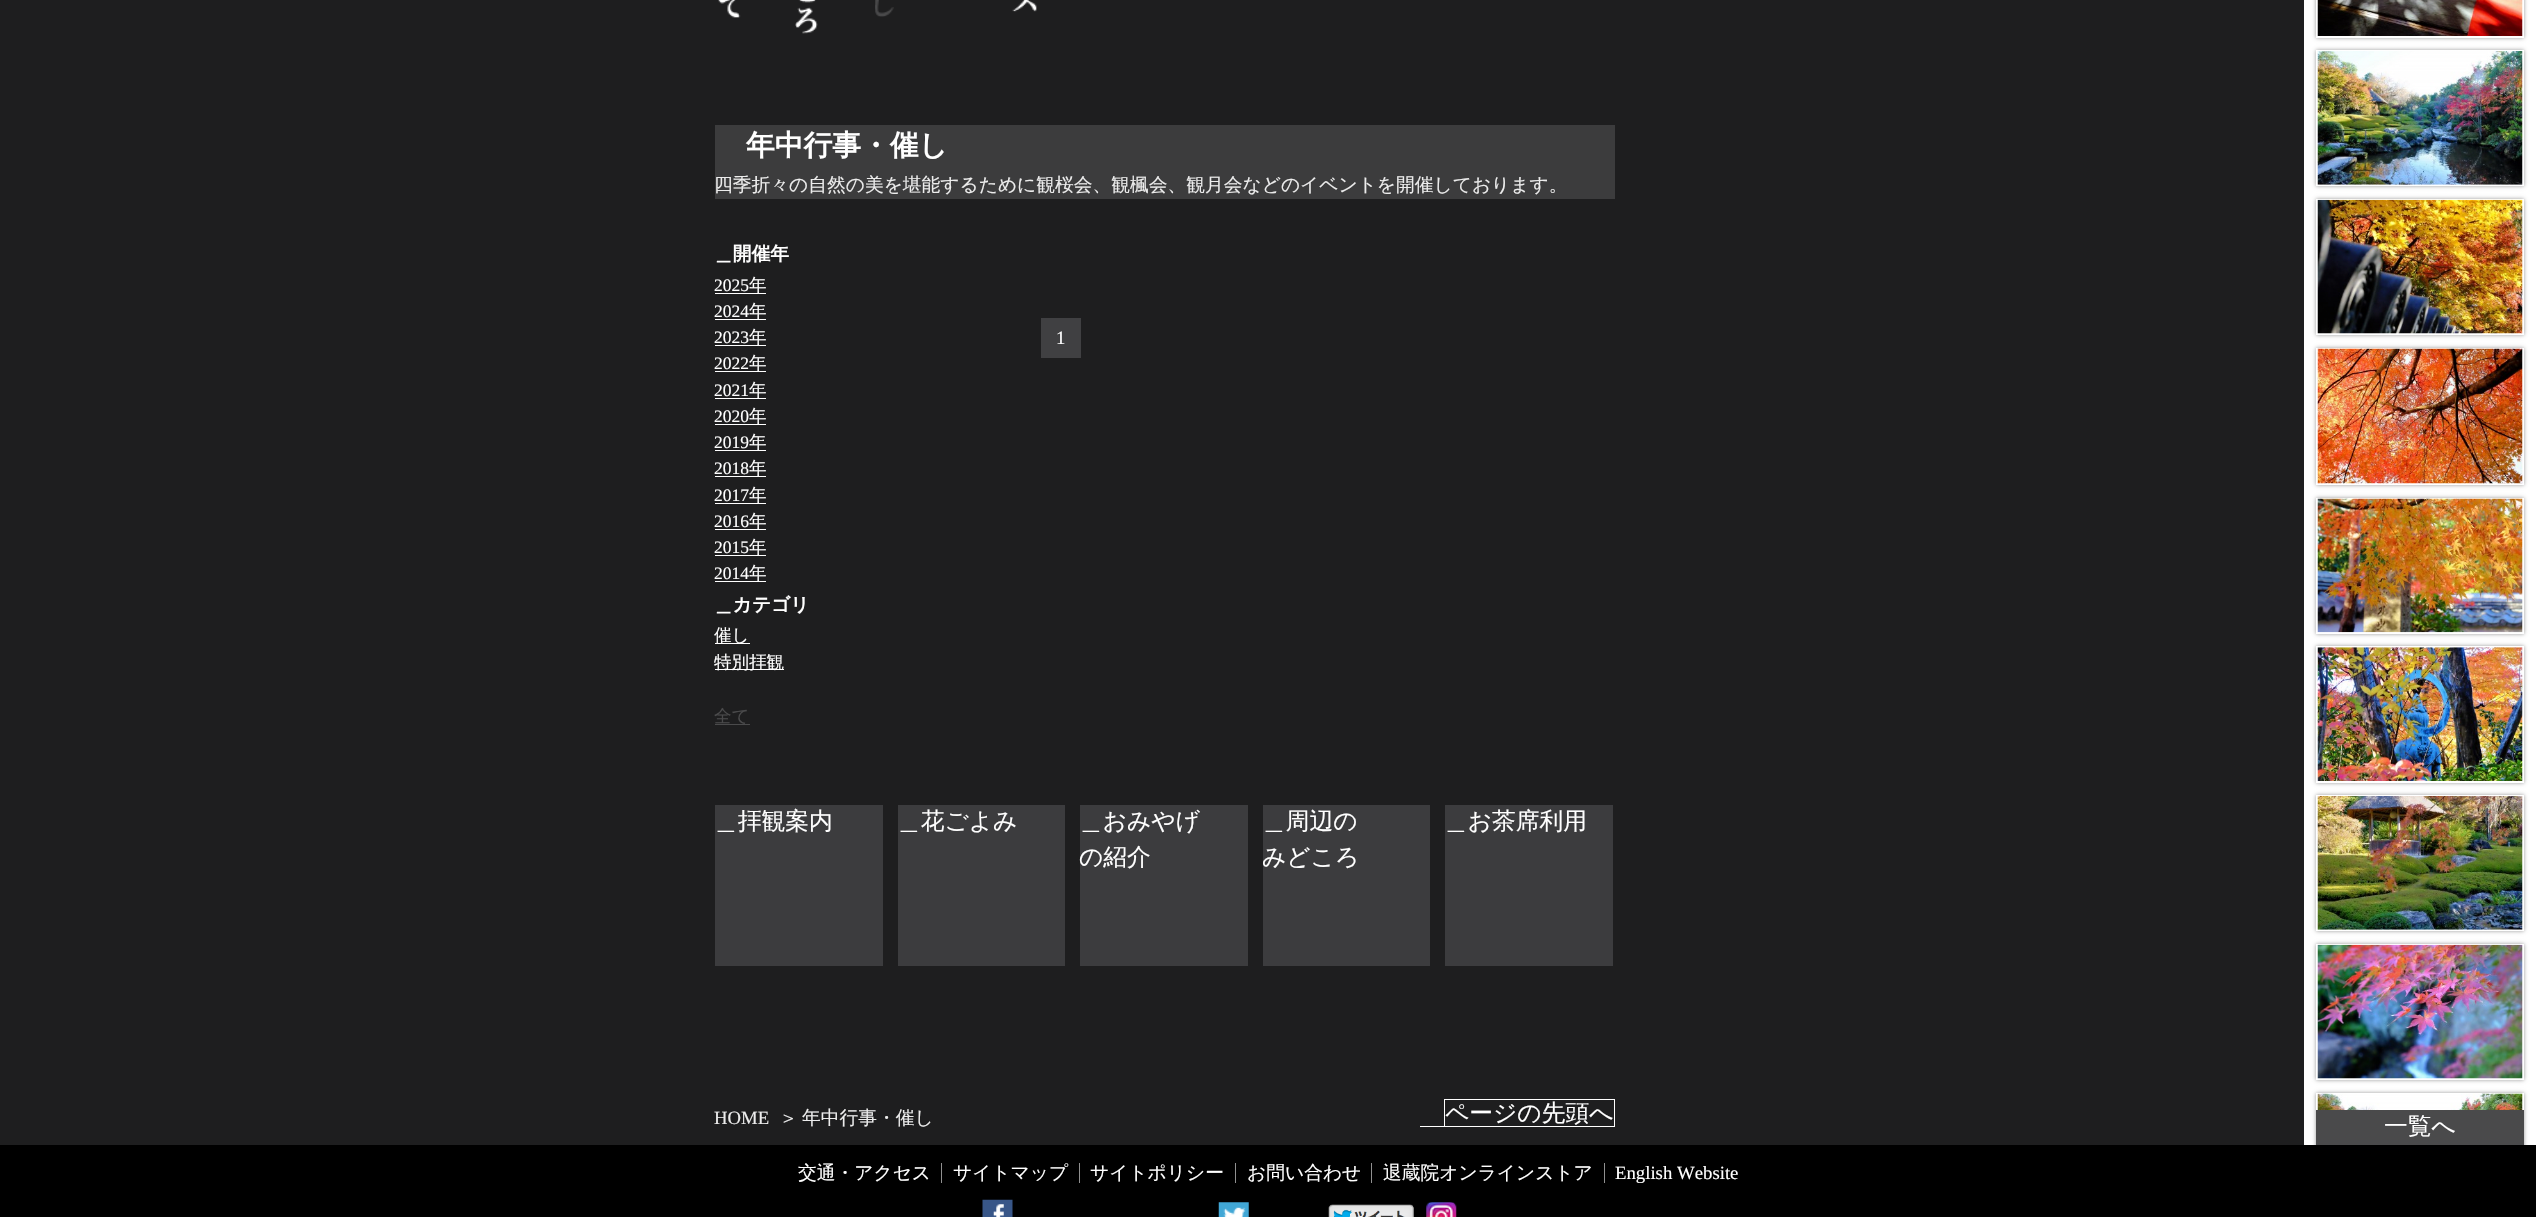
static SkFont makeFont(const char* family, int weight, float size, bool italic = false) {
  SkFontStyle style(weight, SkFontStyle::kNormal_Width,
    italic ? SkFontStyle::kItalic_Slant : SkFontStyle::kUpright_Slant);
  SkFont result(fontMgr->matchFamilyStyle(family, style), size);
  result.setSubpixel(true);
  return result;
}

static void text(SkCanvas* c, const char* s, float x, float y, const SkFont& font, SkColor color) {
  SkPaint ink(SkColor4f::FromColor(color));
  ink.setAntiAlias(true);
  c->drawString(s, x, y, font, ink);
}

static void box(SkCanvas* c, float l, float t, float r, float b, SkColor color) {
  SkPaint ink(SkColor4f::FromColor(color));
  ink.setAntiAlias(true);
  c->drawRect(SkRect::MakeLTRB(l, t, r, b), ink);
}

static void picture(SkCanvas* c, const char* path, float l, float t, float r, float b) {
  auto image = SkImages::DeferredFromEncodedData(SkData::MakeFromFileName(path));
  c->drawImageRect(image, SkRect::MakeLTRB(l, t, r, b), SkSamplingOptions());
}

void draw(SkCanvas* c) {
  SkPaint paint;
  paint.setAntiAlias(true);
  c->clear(0xff000000);
  box(c, 0, 0, 2304, 1145, 0xff1e1e1f);
  picture(c, "img_01.png", 718, 0, 741, 18);
  picture(c, "img_02.png", 795, 0, 818, 34);
  picture(c, "img_03.png", 875, 0, 894, 17);
  picture(c, "img_04.png", 1012, 0, 1037, 12);
  box(c, 715, 125, 1615, 199, 0xff3c3c3d);
  SkFont face1 = makeFont("WenQuanYi Zen Hei", 700, 28.75f);
  text(c, "年中行事・催し", 746, 155, face1, 0xffffffff);
  SkFont face2 = makeFont("WenQuanYi Zen Hei", 500, 18.75f);
  text(c, "四季折々の自然の美を堪能するために観桜会、観楓会、観月会などのイベントを開催しております。", 714, 191, face2, 0xffececec);
  SkFont face3 = makeFont("WenQuanYi Zen Hei", 700, 18.75f);
  text(c, "＿開催年", 714, 260, face3, 0xffffffff);
  SkFont face4 = makeFont("Liberation Serif", 400, 17.5f);
  text(c, "2025", 714, 291, face4, 0xffffffff);
  box(c, 715, 293, 766, 294, 0xffffffff);
  SkFont face5 = makeFont("WenQuanYi Zen Hei", 500, 17.5f);
  text(c, "年", 749, 291, face5, 0xffffffff);
  text(c, "2024", 714, 317, face4, 0xffffffff);
  box(c, 715, 319, 766, 320, 0xffffffff);
  text(c, "年", 749, 317, face5, 0xffffffff);
  text(c, "2023", 714, 343, face4, 0xffffffff);
  box(c, 715, 345, 766, 346, 0xffffffff);
  text(c, "年", 749, 343, face5, 0xffffffff);
  text(c, "2022", 714, 369, face4, 0xffffffff);
  box(c, 715, 371, 766, 372, 0xffffffff);
  text(c, "年", 749, 369, face5, 0xffffffff);
  text(c, "2021", 714, 396, face4, 0xffffffff);
  box(c, 715, 398, 766, 399, 0xffffffff);
  text(c, "年", 749, 396, face5, 0xffffffff);
  text(c, "2020", 714, 422, face4, 0xffffffff);
  box(c, 715, 424, 766, 425, 0xffffffff);
  text(c, "年", 749, 422, face5, 0xffffffff);
  text(c, "2019", 714, 448, face4, 0xffffffff);
  box(c, 715, 450, 766, 451, 0xffffffff);
  text(c, "年", 749, 448, face5, 0xffffffff);
  text(c, "2018", 714, 474, face4, 0xffffffff);
  box(c, 715, 476, 766, 477, 0xffffffff);
  text(c, "年", 749, 474, face5, 0xffffffff);
  text(c, "2017", 714, 501, face4, 0xffffffff);
  box(c, 715, 503, 766, 504, 0xffffffff);
  text(c, "年", 749, 501, face5, 0xffffffff);
  text(c, "2016", 714, 527, face4, 0xffffffff);
  box(c, 715, 529, 766, 530, 0xffffffff);
  text(c, "年", 749, 527, face5, 0xffffffff);
  text(c, "2015", 714, 553, face4, 0xffffffff);
  box(c, 715, 555, 766, 556, 0xffffffff);
  text(c, "年", 749, 553, face5, 0xffffffff);
  text(c, "2014", 714, 579, face4, 0xffffffff);
  box(c, 715, 581, 766, 582, 0xffffffff);
  text(c, "年", 749, 579, face5, 0xffffffff);
  text(c, "＿カテゴリ", 714, 611, face3, 0xffffffff);
  box(c, 715, 643, 750, 644, 0xffffffff);
  text(c, "催し", 714, 641, face5, 0xffffffff);
  box(c, 715, 669, 784, 670, 0xffffffff);
  text(c, "特別拝観", 714, 668, face5, 0xffffffff);
  text(c, "全て", 714, 722, face5, 0xff4a4a4b);
  box(c, 715, 724, 750, 725, 0xff4a4a4b);
  box(c, 1041, 318, 1081, 358, 0xff404042);
  SkFont face6 = makeFont("Liberation Serif", 400, 18.75f);
  text(c, "1", 1056, 344, face6, 0xffffffff);
  box(c, 715, 805, 883, 966, 0xff3c3c3e);
  SkFont face7 = makeFont("WenQuanYi Zen Hei", 500, 23.75f);
  text(c, "＿拝観案内", 714, 829, face7, 0xffffffff);
  box(c, 898, 805, 1065, 966, 0xff3c3c3e);
  text(c, "＿花ごよみ", 897, 829, face7, 0xffffffff);
  box(c, 1080, 805, 1248, 966, 0xff3c3c3e);
  text(c, "＿おみやげ", 1079, 829, face7, 0xffffffff);
  text(c, "の紹介", 1079, 865, face7, 0xffffffff);
  box(c, 1263, 805, 1430, 966, 0xff3c3c3e);
  text(c, "＿周辺の", 1262, 829, face7, 0xffffffff);
  text(c, "みどころ", 1262, 865, face7, 0xffffffff);
  box(c, 1445, 805, 1613, 966, 0xff3c3c3e);
  text(c, "＿お茶席利用", 1444, 829, face7, 0xffffffff);
  text(c, "HOME", 714, 1124, face6, 0xffececec);
  text(c, "＞", 779, 1124, face2, 0xffececec);
  text(c, "年中行事・催し", 802, 1124, face2, 0xffececec);
  text(c, "ページの先頭へ", 1445, 1121, face7, 0xffffffff);
  box(c, 1420, 1126, 1615, 1127, 0xffffffff);
  box(c, 1444, 1099, 1615, 1100, 0xffffffff);
  box(c, 1614, 1099, 1615, 1126, 0xffffffff);
  box(c, 1444, 1099, 1445, 1126, 0xffffffff);
  box(c, 2304, 0, 2536, 1145, 0xffffffff);
  paint.setColor(0xff999999);
  paint.setMaskFilter(SkMaskFilter::MakeBlur(kNormal_SkBlurStyle, 2));
  c->drawRect(SkRect::MakeLTRB(2316, -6, 2524, 38), paint);
  paint.setMaskFilter(nullptr);
  box(c, 2316, 0, 2524, 38, 0xffffffff);
  picture(c, "img_05.png", 2317, 0, 2523, 36);
  paint.setMaskFilter(SkMaskFilter::MakeBlur(kNormal_SkBlurStyle, 2));
  c->drawRect(SkRect::MakeLTRB(2316, 50, 2524, 186), paint);
  paint.setMaskFilter(nullptr);
  box(c, 2316, 50, 2524, 186, 0xffffffff);
  picture(c, "img_06.png", 2317, 51, 2523, 185);
  paint.setMaskFilter(SkMaskFilter::MakeBlur(kNormal_SkBlurStyle, 2));
  c->drawRect(SkRect::MakeLTRB(2316, 199, 2524, 335), paint);
  paint.setMaskFilter(nullptr);
  box(c, 2316, 199, 2524, 335, 0xffffffff);
  picture(c, "img_07.png", 2317, 199, 2523, 334);
  paint.setMaskFilter(SkMaskFilter::MakeBlur(kNormal_SkBlurStyle, 2));
  c->drawRect(SkRect::MakeLTRB(2316, 348, 2524, 485), paint);
  paint.setMaskFilter(nullptr);
  box(c, 2316, 348, 2524, 485, 0xffffffff);
  picture(c, "img_08.png", 2317, 348, 2523, 484);
  paint.setMaskFilter(SkMaskFilter::MakeBlur(kNormal_SkBlurStyle, 2));
  c->drawRect(SkRect::MakeLTRB(2316, 498, 2524, 634), paint);
  paint.setMaskFilter(nullptr);
  box(c, 2316, 498, 2524, 634, 0xffffffff);
  picture(c, "img_09.png", 2317, 498, 2523, 633);
  paint.setMaskFilter(SkMaskFilter::MakeBlur(kNormal_SkBlurStyle, 2));
  c->drawRect(SkRect::MakeLTRB(2316, 646, 2524, 783), paint);
  paint.setMaskFilter(nullptr);
  box(c, 2316, 646, 2524, 783, 0xffffffff);
  picture(c, "img_10.png", 2317, 647, 2523, 781);
  paint.setMaskFilter(SkMaskFilter::MakeBlur(kNormal_SkBlurStyle, 2));
  c->drawRect(SkRect::MakeLTRB(2316, 795, 2524, 931), paint);
  paint.setMaskFilter(nullptr);
  box(c, 2316, 795, 2524, 931, 0xffffffff);
  picture(c, "img_11.png", 2317, 796, 2523, 930);
  paint.setMaskFilter(SkMaskFilter::MakeBlur(kNormal_SkBlurStyle, 2));
  c->drawRect(SkRect::MakeLTRB(2316, 944, 2524, 1080), paint);
  paint.setMaskFilter(nullptr);
  box(c, 2316, 944, 2524, 1080, 0xffffffff);
  picture(c, "img_12.png", 2317, 944, 2523, 1079);
  c->save();
  c->clipRect(SkRect::MakeLTRB(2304, 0, 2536, 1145));
  paint.setMaskFilter(SkMaskFilter::MakeBlur(kNormal_SkBlurStyle, 2));
  c->drawRect(SkRect::MakeLTRB(2316, 1093, 2524, 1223), paint);
  paint.setMaskFilter(nullptr);
  c->restore();
  box(c, 2316, 1093, 2524, 1110, 0xffffffff);
  picture(c, "img_13.png", 2317, 1093, 2523, 1110);
  box(c, 2316, 1110, 2524, 1145, 0xff4a4a4b);
  text(c, "一覧へ", 2384, 1134, face7, 0xffffffff);
  text(c, "交通・アクセス", 798, 1179, face2, 0xffffffff);
  text(c, "サイトマップ", 953, 1179, face2, 0xffffffff);
  box(c, 941, 1163, 942, 1183, 0xff909090);
  text(c, "サイトポリシー", 1090, 1179, face2, 0xffffffff);
  box(c, 1079, 1163, 1080, 1183, 0xff909090);
  text(c, "お問い合わせ", 1247, 1179, face2, 0xffffffff);
  box(c, 1235, 1163, 1236, 1183, 0xff909090);
  text(c, "退蔵院オンラインストア", 1383, 1179, face2, 0xffffffff);
  box(c, 1371, 1163, 1372, 1183, 0xff909090);
  text(c, "English Website", 1615, 1179, face6, 0xffffffff);
  box(c, 1604, 1163, 1605, 1183, 0xff909090);
  picture(c, "img_14.png", 982, 1199, 1013, 1217);
  picture(c, "img_15.png", 1218, 1202, 1249, 1217);
  picture(c, "img_16.png", 1328, 1204, 1414, 1217);
  picture(c, "img_17.png", 1426, 1202, 1457, 1217);
}
